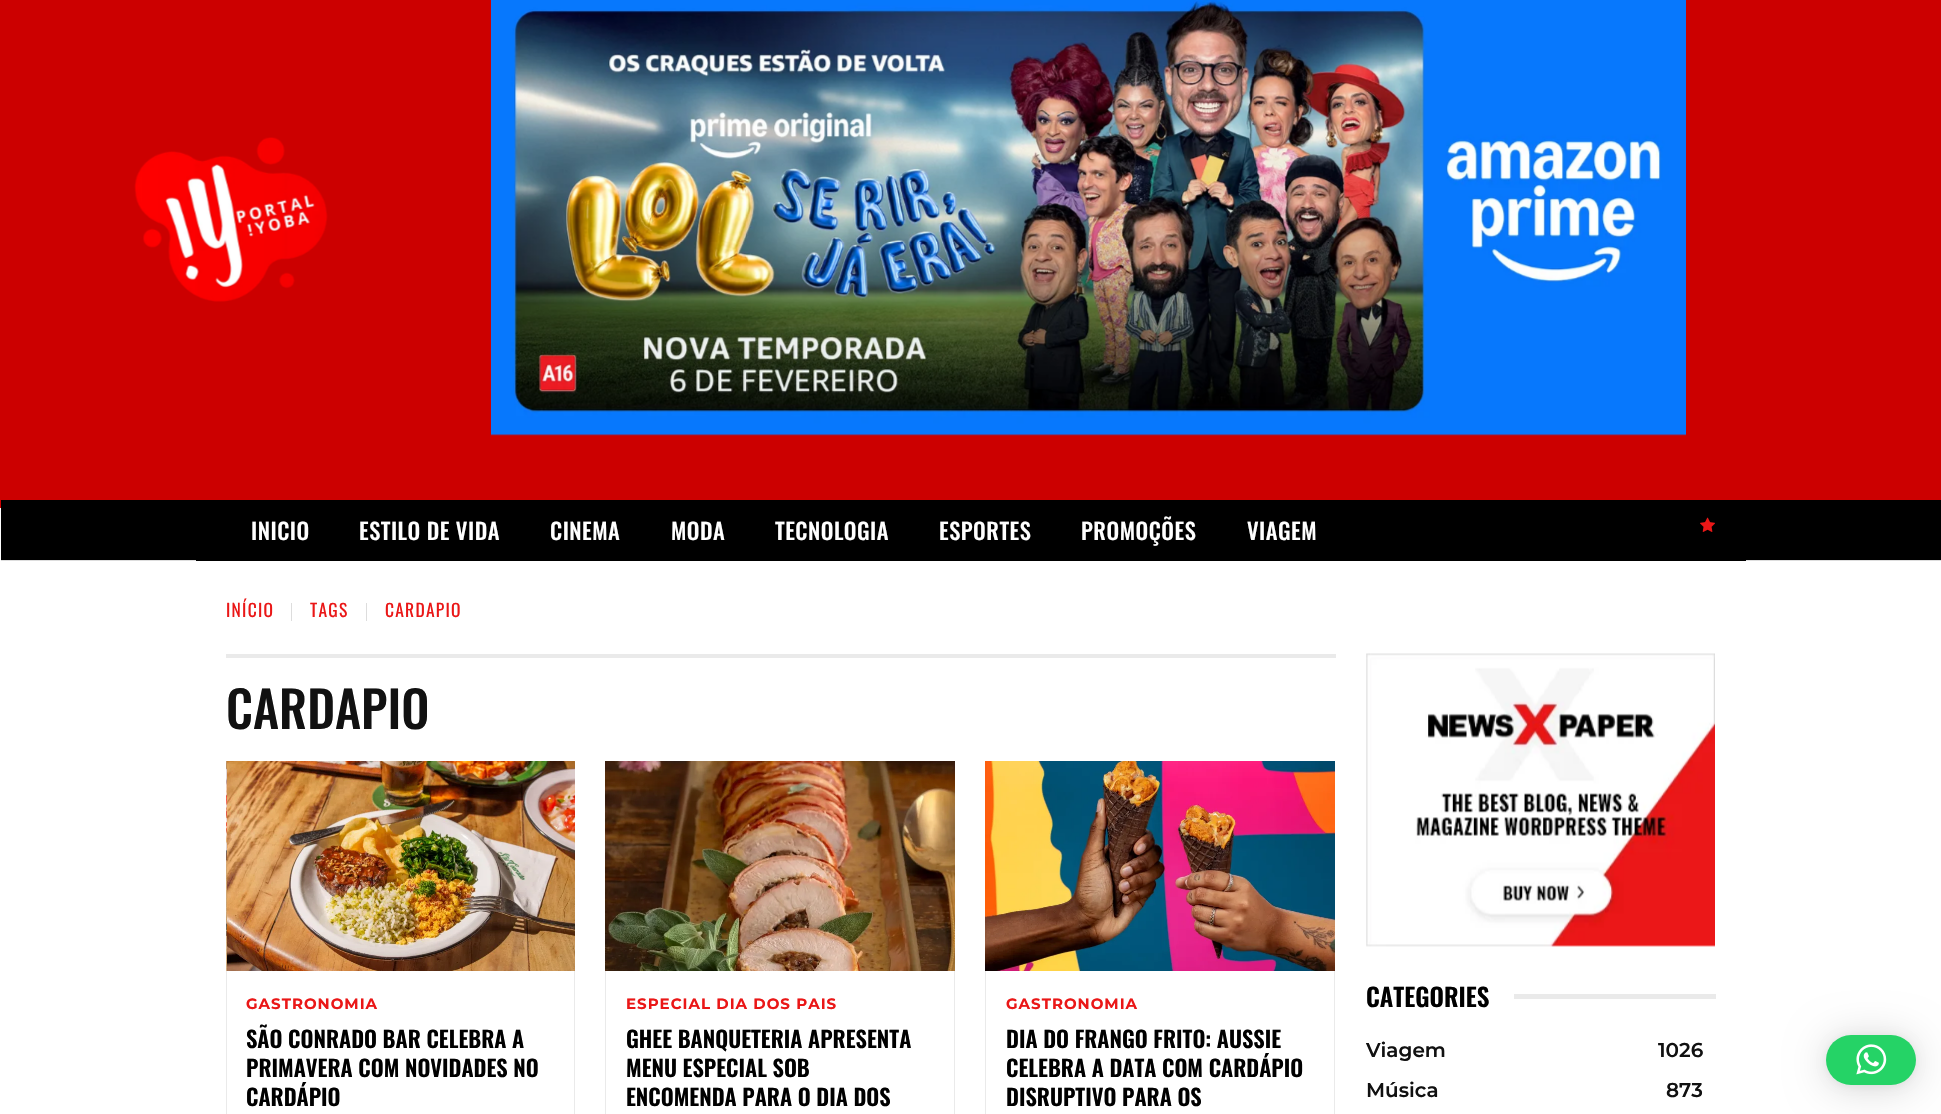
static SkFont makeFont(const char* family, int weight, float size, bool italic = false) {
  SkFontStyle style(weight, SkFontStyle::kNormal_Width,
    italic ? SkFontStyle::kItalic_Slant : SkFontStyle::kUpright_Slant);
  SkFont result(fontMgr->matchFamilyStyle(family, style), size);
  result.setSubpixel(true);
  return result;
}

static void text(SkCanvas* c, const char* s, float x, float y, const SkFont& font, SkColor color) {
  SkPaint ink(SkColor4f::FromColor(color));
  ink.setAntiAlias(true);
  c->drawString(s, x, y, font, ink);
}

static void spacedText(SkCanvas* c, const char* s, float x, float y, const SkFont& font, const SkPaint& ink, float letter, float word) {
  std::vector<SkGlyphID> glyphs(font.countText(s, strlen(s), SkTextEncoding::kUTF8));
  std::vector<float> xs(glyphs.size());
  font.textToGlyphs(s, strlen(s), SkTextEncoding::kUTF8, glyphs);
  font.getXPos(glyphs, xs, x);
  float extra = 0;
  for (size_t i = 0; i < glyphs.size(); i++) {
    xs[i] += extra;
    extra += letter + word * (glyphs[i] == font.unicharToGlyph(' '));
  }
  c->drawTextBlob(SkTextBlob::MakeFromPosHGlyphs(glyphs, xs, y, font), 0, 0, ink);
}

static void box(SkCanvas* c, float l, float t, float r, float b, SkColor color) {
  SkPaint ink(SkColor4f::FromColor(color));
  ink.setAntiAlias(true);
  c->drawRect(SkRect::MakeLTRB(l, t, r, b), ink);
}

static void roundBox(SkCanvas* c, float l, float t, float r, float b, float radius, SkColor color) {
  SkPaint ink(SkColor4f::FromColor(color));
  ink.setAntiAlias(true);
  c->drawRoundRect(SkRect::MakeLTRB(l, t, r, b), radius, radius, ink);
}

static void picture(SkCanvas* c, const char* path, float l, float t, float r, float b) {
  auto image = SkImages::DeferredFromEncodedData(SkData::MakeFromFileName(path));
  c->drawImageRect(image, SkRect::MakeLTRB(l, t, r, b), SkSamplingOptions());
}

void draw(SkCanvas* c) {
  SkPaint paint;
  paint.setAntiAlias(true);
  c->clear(0xffffffff);
  box(c, 0, 0, 1941, 508, 0xffcc0000);
  picture(c, "img_01.png", 134, 137, 328, 302);
  picture(c, "img_02.png", 491, 0, 1686, 436);
  box(c, 1, 500, 1941, 560, 0xff000000);
  box(c, 1, 560, 1941, 561, 0xffdddddd);
  SkFont face1 = makeFont("Oswald", 500, 22.5f);
  paint.setColor(0xffffffff);
  spacedText(c, "INICIO", 251, 540, face1, paint, 0.5f, 0);
  spacedText(c, "ESTILO DE VIDA", 359, 540, face1, paint, 0.5f, 0);
  spacedText(c, "CINEMA", 550, 540, face1, paint, 0.5f, 0);
  spacedText(c, "MODA", 671, 540, face1, paint, 0.5f, 0);
  spacedText(c, "TECNOLOGIA", 775, 540, face1, paint, 0.5f, 0);
  spacedText(c, "ESPORTES", 939, 540, face1, paint, 0.5f, 0);
  spacedText(c, "PROMOÇÕES", 1081, 540, face1, paint, 0.5f, 0);
  spacedText(c, "VIAGEM", 1247, 540, face1, paint, 0.5f, 0);
  picture(c, "img_03.png", 1700, 517, 1715, 532);
  box(c, 196, 560, 1746, 561, 0xff000000);
  SkFont face2 = makeFont("Oswald", 400, 17.5f);
  paint.setColor(0xffea1717);
  spacedText(c, "INÍCIO", 226, 617, face2, paint, 1.25f, 0);
  box(c, 291, 603, 292, 621, 0xffdddddd);
  spacedText(c, "TAGS", 310, 617, face2, paint, 1.25f, 0);
  box(c, 366, 603, 367, 621, 0xffdddddd);
  spacedText(c, "CARDAPIO", 385, 617, face2, paint, 1.25f, 0);
  box(c, 226, 654, 1336, 658, 0xffeaeaea);
  SkFont face3 = makeFont("Oswald", 500, 50);
  text(c, "CARDAPIO", 226, 729, face3, 0xff111111);
  picture(c, "img_04.png", 226, 761, 575, 971);
  box(c, 574, 971, 575, 1114, 0xffeaeaea);
  box(c, 226, 971, 227, 1114, 0xffeaeaea);
  SkFont face4 = makeFont("Montserrat", 700, 15);
  spacedText(c, "GASTRONOMIA", 246, 1009, face4, paint, 1, 0);
  SkFont face5 = makeFont("Oswald", 600, 22.5f);
  text(c, "SÃO CONRADO BAR CELEBRA A", 246, 1048, face5, 0xff000000);
  text(c, "PRIMAVERA COM NOVIDADES NO", 246, 1077, face5, 0xff000000);
  text(c, "CARDÁPIO", 246, 1106, face5, 0xff000000);
  picture(c, "img_05.png", 605, 761, 955, 971);
  box(c, 954, 971, 955, 1114, 0xffeaeaea);
  box(c, 605, 971, 606, 1114, 0xffeaeaea);
  spacedText(c, "ESPECIAL DIA DOS PAIS", 626, 1009, face4, paint, 1, 0);
  text(c, "GHEE BANQUETERIA APRESENTA", 626, 1048, face5, 0xff000000);
  text(c, "MENU ESPECIAL SOB", 626, 1077, face5, 0xff000000);
  text(c, "ENCOMENDA PARA O DIA DOS", 626, 1106, face5, 0xff000000);
  picture(c, "img_06.png", 985, 761, 1335, 971);
  box(c, 1334, 971, 1335, 1114, 0xffeaeaea);
  box(c, 985, 971, 986, 1114, 0xffeaeaea);
  spacedText(c, "GASTRONOMIA", 1006, 1009, face4, paint, 1, 0);
  text(c, "DIA DO FRANGO FRITO: AUSSIE", 1006, 1048, face5, 0xff000000);
  text(c, "CELEBRA A DATA COM CARDÁPIO", 1006, 1077, face5, 0xff000000);
  text(c, "DISRUPTIVO PARA OS", 1006, 1106, face5, 0xff000000);
  picture(c, "img_07.png", 1366, 653, 1715, 947);
  SkFont face6 = makeFont("Oswald", 600, 25);
  text(c, "CATEGORIES", 1366, 1007, face6, 0xff000000);
  box(c, 1514, 994, 1716, 999, 0xffeaeaea);
  SkFont face7 = makeFont("Montserrat", 600, 20);
  text(c, "Viagem", 1366, 1057, face7, 0xff111111);
  text(c, "1026", 1658, 1057, face7, 0xff111111);
  text(c, "Música", 1366, 1097, face7, 0xff111111);
  text(c, "873", 1666, 1097, face7, 0xff111111);
  paint.setColor(0x29000000);
  paint.setMaskFilter(SkMaskFilter::MakeBlur(kNormal_SkBlurStyle, 20));
  c->drawRoundRect(SkRect::MakeLTRB(1826, 1038, 1916, 1088), 25, 25, paint);
  paint.setMaskFilter(nullptr);
  paint.setColor(0x0f000000);
  paint.setMaskFilter(SkMaskFilter::MakeBlur(kNormal_SkBlurStyle, 4));
  c->drawRoundRect(SkRect::MakeLTRB(1826, 1036, 1916, 1086), 25, 25, paint);
  paint.setMaskFilter(nullptr);
  roundBox(c, 1826, 1035, 1916, 1085, 25, 0xff25d366);
  picture(c, "img_08.png", 1856, 1044, 1887, 1075);
}
